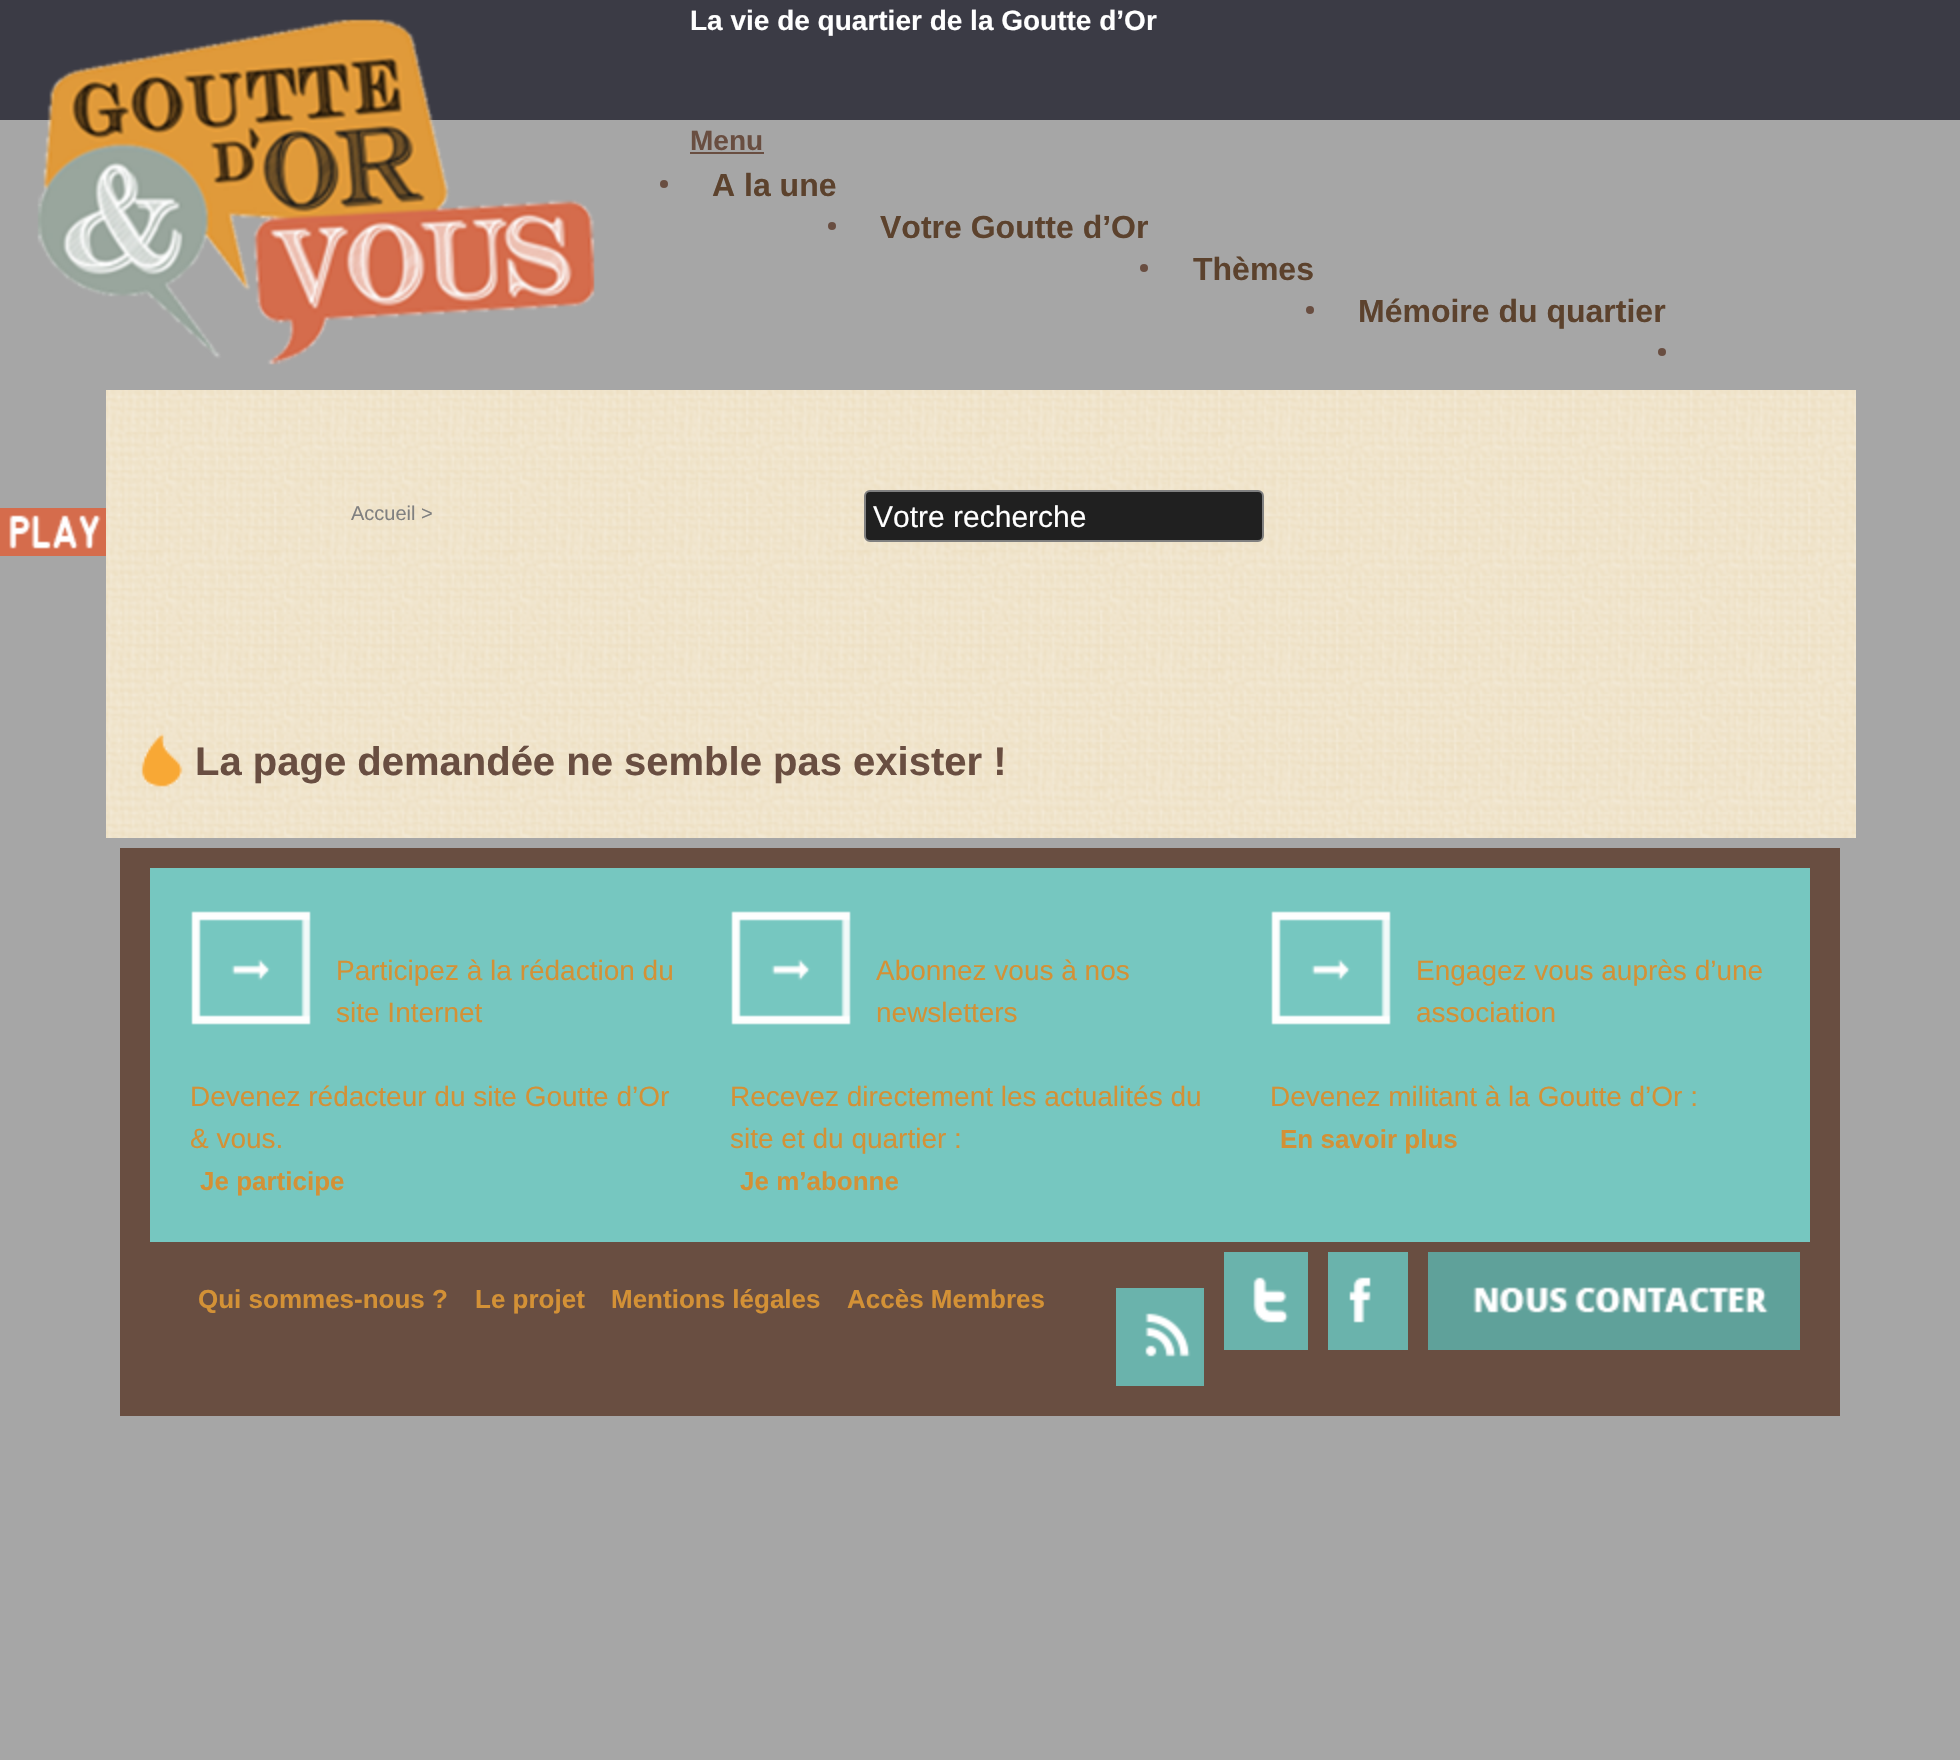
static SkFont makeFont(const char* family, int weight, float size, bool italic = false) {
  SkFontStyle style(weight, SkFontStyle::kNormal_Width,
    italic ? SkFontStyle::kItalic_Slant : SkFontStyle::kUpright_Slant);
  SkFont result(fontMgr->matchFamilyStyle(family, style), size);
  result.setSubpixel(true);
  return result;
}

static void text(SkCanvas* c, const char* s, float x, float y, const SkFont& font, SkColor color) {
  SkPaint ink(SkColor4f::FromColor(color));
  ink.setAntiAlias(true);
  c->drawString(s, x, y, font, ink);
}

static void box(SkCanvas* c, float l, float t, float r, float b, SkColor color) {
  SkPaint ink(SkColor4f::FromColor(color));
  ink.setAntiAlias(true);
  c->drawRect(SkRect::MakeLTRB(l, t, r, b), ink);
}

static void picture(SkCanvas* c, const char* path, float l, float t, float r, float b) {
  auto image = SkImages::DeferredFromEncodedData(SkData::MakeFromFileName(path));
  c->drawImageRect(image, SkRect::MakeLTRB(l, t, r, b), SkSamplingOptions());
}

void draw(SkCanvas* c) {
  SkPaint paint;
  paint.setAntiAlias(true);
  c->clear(0xffa6a6a6);
  box(c, 0, 0, 1960, 120, 0xff3b3b45);
  picture(c, "img_01.png", 37, 19, 595, 365);
  SkFont face1 = makeFont("Liberation Sans", 700, 28);
  text(c, "La vie de quartier de la Goutte d’Or", 690, 30, face1, 0xffffffff);
  text(c, "Menu", 690, 150, face1, 0xff694e41);
  box(c, 690, 152, 764, 154, 0xff694e41);
  paint.setColor(0xff694e41);
  c->drawCircle(664, 184, 4, paint);
  SkFont face2 = makeFont("Liberation Sans", 700, 32);
  text(c, "A la une", 712, 196, face2, 0xff5c422d);
  c->drawCircle(832, 226, 4, paint);
  text(c, "Votre Goutte d’Or", 880, 238, face2, 0xff5c422d);
  c->drawCircle(1144, 268, 4, paint);
  text(c, "Thèmes", 1193, 280, face2, 0xff5c422d);
  c->drawCircle(1310, 310, 4, paint);
  text(c, "Mémoire du quartier", 1358, 322, face2, 0xff5c422d);
  c->drawCircle(1662, 352, 4, paint);
  picture(c, "img_02.png", 0, 508, 106, 556);
  picture(c, "img_03.png", 106, 390, 1856, 838);
  SkFont face3 = makeFont("Liberation Sans", 400, 20);
  text(c, "Accueil >", 351, 520, face3, 0xff808080);
  paint.setColor(0xff202020);
  c->drawRoundRect(SkRect::MakeLTRB(865, 491, 1263, 541), 5, 5, paint);
  paint.setStyle(SkPaint::kStroke_Style);
  paint.setStrokeWidth(2);
  paint.setColor(0xff808080);
  c->drawRoundRect(SkRect::MakeLTRB(865, 491, 1263, 541), 5, 5, paint);
  SkFont face4 = makeFont("Liberation Sans", 400, 30);
  text(c, "Votre recherche", 873, 527, face4, 0xffffffff);
  picture(c, "img_04.png", 141, 733, 183, 788);
  SkFont face5 = makeFont("Liberation Sans", 700, 40);
  text(c, "La page demandée ne semble pas exister !", 195, 775, face5, 0xff694e41);
  box(c, 120, 848, 1840, 1416, 0xff694e41);
  box(c, 150, 868, 1810, 1242, 0xff76c7c0);
  picture(c, "img_05.png", 191, 911, 311, 1025);
  SkFont face6 = makeFont("Liberation Sans", 400, 28);
  text(c, "Participez à la rédaction du", 336, 980, face6, 0xffd39136);
  text(c, "site Internet", 336, 1022, face6, 0xffd39136);
  text(c, "Devenez rédacteur du site Goutte d’Or", 190, 1106, face6, 0xffd39136);
  text(c, "& vous.", 190, 1148, face6, 0xffd39136);
  SkFont face7 = makeFont("Liberation Sans", 700, 26);
  text(c, "Je participe", 200, 1190, face7, 0xffd39136);
  picture(c, "img_05.png", 731, 911, 851, 1025);
  text(c, "Abonnez vous à nos", 876, 980, face6, 0xffd39136);
  text(c, "newsletters", 876, 1022, face6, 0xffd39136);
  text(c, "Recevez directement les actualités du", 730, 1106, face6, 0xffd39136);
  text(c, "site et du quartier :", 730, 1148, face6, 0xffd39136);
  text(c, "Je m’abonne", 740, 1190, face7, 0xffd39136);
  picture(c, "img_05.png", 1271, 911, 1391, 1025);
  text(c, "Engagez vous auprès d’une", 1416, 980, face6, 0xffd39136);
  text(c, "association", 1416, 1022, face6, 0xffd39136);
  text(c, "Devenez militant à la Goutte d’Or :", 1270, 1106, face6, 0xffd39136);
  text(c, "En savoir plus", 1280, 1148, face7, 0xffd39136);
  text(c, "Qui sommes-nous ?", 198, 1308, face7, 0xffd39136);
  text(c, "Le projet", 475, 1308, face7, 0xffd39136);
  text(c, "Mentions légales", 611, 1308, face7, 0xffd39136);
  text(c, "Accès Membres", 847, 1308, face7, 0xffd39136);
  picture(c, "img_06.png", 1116, 1288, 1204, 1386);
  picture(c, "img_07.png", 1224, 1252, 1308, 1350);
  picture(c, "img_08.png", 1328, 1252, 1408, 1350);
  picture(c, "img_09.png", 1428, 1252, 1800, 1350);
}
